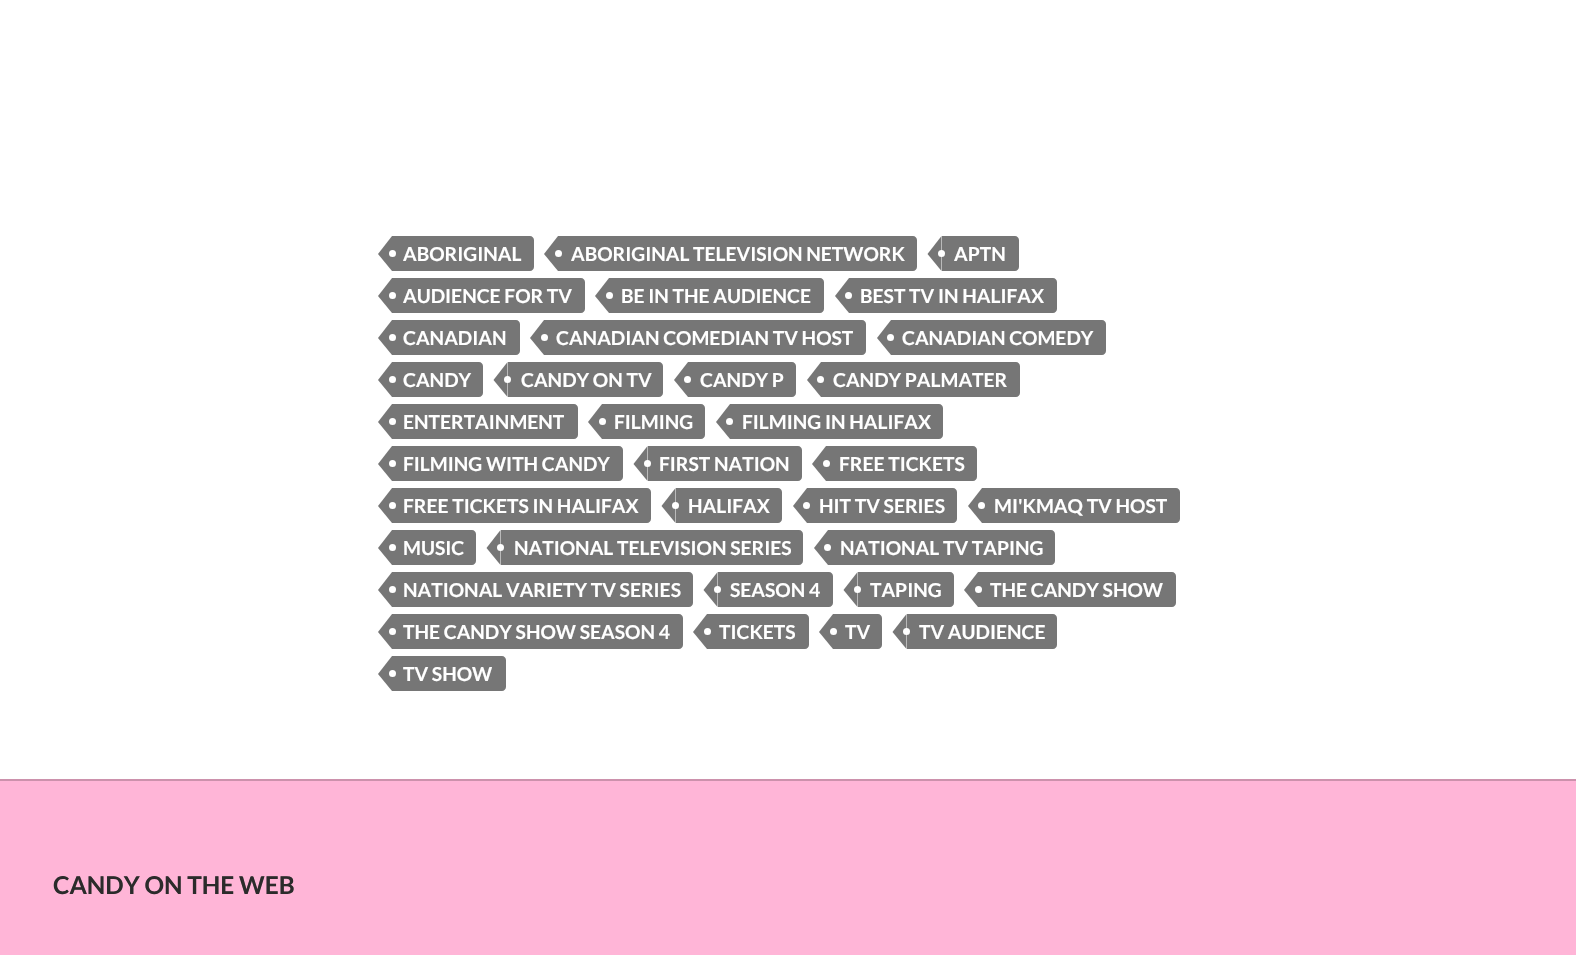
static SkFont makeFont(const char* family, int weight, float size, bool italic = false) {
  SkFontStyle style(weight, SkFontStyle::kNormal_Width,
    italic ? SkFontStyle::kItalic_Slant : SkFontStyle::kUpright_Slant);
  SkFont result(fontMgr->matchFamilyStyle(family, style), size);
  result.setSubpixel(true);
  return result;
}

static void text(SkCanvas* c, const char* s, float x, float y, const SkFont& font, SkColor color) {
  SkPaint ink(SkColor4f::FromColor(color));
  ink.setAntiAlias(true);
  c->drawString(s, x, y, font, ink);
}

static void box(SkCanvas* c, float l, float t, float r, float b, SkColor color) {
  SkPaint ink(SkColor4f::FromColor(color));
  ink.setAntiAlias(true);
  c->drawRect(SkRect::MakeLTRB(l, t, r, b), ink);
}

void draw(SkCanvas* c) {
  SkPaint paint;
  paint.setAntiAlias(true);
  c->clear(0xffffffff);
  paint.setColor(0xff767676);
  c->drawPath(SkPathBuilder().moveTo(392, 236).lineTo(530, 236).cubicTo(532, 236, 534, 238, 534, 240).lineTo(534, 267).cubicTo(534, 269, 532, 271, 530, 271).lineTo(392, 271).close().detach(), paint);
  c->drawPath(SkPathBuilder().moveTo(392, 236).lineTo(392, 271).lineTo(378, 254).close().detach(), paint);
  paint.setColor(0xffffffff);
  c->drawCircle(392.5f, 253.5f, 3.5f, paint);
  SkFont face1 = makeFont("Lato", 700, 19.25f);
  text(c, "ABORIGINAL", 403, 261, face1, 0xffffffff);
  paint.setColor(0xff767676);
  c->drawPath(SkPathBuilder().moveTo(558, 236).lineTo(913, 236).cubicTo(915, 236, 917, 238, 917, 240).lineTo(917, 267).cubicTo(917, 269, 915, 271, 913, 271).lineTo(558, 271).close().detach(), paint);
  c->drawPath(SkPathBuilder().moveTo(558, 236).lineTo(558, 271).lineTo(544, 254).close().detach(), paint);
  paint.setColor(0xffffffff);
  c->drawCircle(558.5f, 253.5f, 3.5f, paint);
  text(c, "ABORIGINAL TELEVISION NETWORK", 571, 261, face1, 0xffffffff);
  paint.setColor(0xff767676);
  c->drawPath(SkPathBuilder().moveTo(942, 236).lineTo(1015, 236).cubicTo(1017, 236, 1019, 238, 1019, 240).lineTo(1019, 267).cubicTo(1019, 269, 1017, 271, 1015, 271).lineTo(942, 271).close().detach(), paint);
  c->drawPath(SkPathBuilder().moveTo(941.5f, 236).lineTo(941.5f, 271).lineTo(927.5f, 254).close().detach(), paint);
  text(c, "APTN", 954, 261, face1, 0xffffffff);
  paint.setColor(0xffffffff);
  c->drawCircle(941.5f, 253.5f, 3.5f, paint);
  paint.setColor(0xff767676);
  c->drawPath(SkPathBuilder().moveTo(392, 278).lineTo(581, 278).cubicTo(583, 278, 585, 280, 585, 282).lineTo(585, 309).cubicTo(585, 311, 583, 313, 581, 313).lineTo(392, 313).close().detach(), paint);
  c->drawPath(SkPathBuilder().moveTo(392, 278).lineTo(392, 313).lineTo(378, 296).close().detach(), paint);
  paint.setColor(0xffffffff);
  c->drawCircle(392.5f, 295.5f, 3.5f, paint);
  text(c, "AUDIENCE FOR TV", 403, 303, face1, 0xffffffff);
  paint.setColor(0xff767676);
  c->drawPath(SkPathBuilder().moveTo(609, 278).lineTo(820, 278).cubicTo(822, 278, 824, 280, 824, 282).lineTo(824, 309).cubicTo(824, 311, 822, 313, 820, 313).lineTo(609, 313).close().detach(), paint);
  c->drawPath(SkPathBuilder().moveTo(609, 278).lineTo(609, 313).lineTo(595, 296).close().detach(), paint);
  paint.setColor(0xffffffff);
  c->drawCircle(609.5f, 295.5f, 3.5f, paint);
  text(c, "BE IN THE AUDIENCE", 621, 303, face1, 0xffffffff);
  paint.setColor(0xff767676);
  c->drawPath(SkPathBuilder().moveTo(849, 278).lineTo(1053, 278).cubicTo(1055, 278, 1057, 280, 1057, 282).lineTo(1057, 309).cubicTo(1057, 311, 1055, 313, 1053, 313).lineTo(849, 313).close().detach(), paint);
  c->drawPath(SkPathBuilder().moveTo(849, 278).lineTo(849, 313).lineTo(835, 296).close().detach(), paint);
  text(c, "BEST TV IN HALIFAX", 860, 303, face1, 0xffffffff);
  paint.setColor(0xffffffff);
  c->drawCircle(848.5f, 295.5f, 3.5f, paint);
  paint.setColor(0xff767676);
  c->drawPath(SkPathBuilder().moveTo(392, 320).lineTo(516, 320).cubicTo(518, 320, 520, 322, 520, 324).lineTo(520, 351).cubicTo(520, 353, 518, 355, 516, 355).lineTo(392, 355).close().detach(), paint);
  c->drawPath(SkPathBuilder().moveTo(392, 320).lineTo(392, 355).lineTo(378, 338).close().detach(), paint);
  paint.setColor(0xffffffff);
  c->drawCircle(392.5f, 337.5f, 3.5f, paint);
  text(c, "CANADIAN", 403, 345, face1, 0xffffffff);
  paint.setColor(0xff767676);
  c->drawPath(SkPathBuilder().moveTo(544, 320).lineTo(862, 320).cubicTo(864, 320, 866, 322, 866, 324).lineTo(866, 351).cubicTo(866, 353, 864, 355, 862, 355).lineTo(544, 355).close().detach(), paint);
  c->drawPath(SkPathBuilder().moveTo(544, 320).lineTo(544, 355).lineTo(530, 338).close().detach(), paint);
  paint.setColor(0xffffffff);
  c->drawCircle(544.5f, 337.5f, 3.5f, paint);
  text(c, "CANADIAN COMEDIAN TV HOST", 556, 345, face1, 0xffffffff);
  paint.setColor(0xff767676);
  c->drawPath(SkPathBuilder().moveTo(891, 320).lineTo(1102, 320).cubicTo(1104, 320, 1106, 322, 1106, 324).lineTo(1106, 351).cubicTo(1106, 353, 1104, 355, 1102, 355).lineTo(891, 355).close().detach(), paint);
  c->drawPath(SkPathBuilder().moveTo(891, 320).lineTo(891, 355).lineTo(877, 338).close().detach(), paint);
  text(c, "CANADIAN COMEDY", 902, 345, face1, 0xffffffff);
  paint.setColor(0xffffffff);
  c->drawCircle(890.5f, 337.5f, 3.5f, paint);
  paint.setColor(0xff767676);
  c->drawPath(SkPathBuilder().moveTo(392, 362).lineTo(479, 362).cubicTo(481, 362, 483, 364, 483, 366).lineTo(483, 393).cubicTo(483, 395, 481, 397, 479, 397).lineTo(392, 397).close().detach(), paint);
  c->drawPath(SkPathBuilder().moveTo(392, 362).lineTo(392, 397).lineTo(378, 380).close().detach(), paint);
  paint.setColor(0xffffffff);
  c->drawCircle(392.5f, 379.5f, 3.5f, paint);
  text(c, "CANDY", 403, 387, face1, 0xffffffff);
  paint.setColor(0xff767676);
  c->drawPath(SkPathBuilder().moveTo(508, 362).lineTo(659, 362).cubicTo(661, 362, 663, 364, 663, 366).lineTo(663, 393).cubicTo(663, 395, 661, 397, 659, 397).lineTo(508, 397).close().detach(), paint);
  c->drawPath(SkPathBuilder().moveTo(507.5f, 362).lineTo(507.5f, 397).lineTo(493.5f, 380).close().detach(), paint);
  text(c, "CANDY ON TV", 521, 387, face1, 0xffffffff);
  paint.setColor(0xffffffff);
  c->drawCircle(507.5f, 379.5f, 3.5f, paint);
  paint.setColor(0xff767676);
  c->drawPath(SkPathBuilder().moveTo(688, 362).lineTo(792, 362).cubicTo(794, 362, 796, 364, 796, 366).lineTo(796, 393).cubicTo(796, 395, 794, 397, 792, 397).lineTo(688, 397).close().detach(), paint);
  c->drawPath(SkPathBuilder().moveTo(688, 362).lineTo(688, 397).lineTo(674, 380).close().detach(), paint);
  text(c, "CANDY P", 700, 387, face1, 0xffffffff);
  paint.setColor(0xffffffff);
  c->drawCircle(687.5f, 379.5f, 3.5f, paint);
  paint.setColor(0xff767676);
  c->drawPath(SkPathBuilder().moveTo(821, 362).lineTo(1016, 362).cubicTo(1018, 362, 1020, 364, 1020, 366).lineTo(1020, 393).cubicTo(1020, 395, 1018, 397, 1016, 397).lineTo(821, 397).close().detach(), paint);
  c->drawPath(SkPathBuilder().moveTo(821, 362).lineTo(821, 397).lineTo(807, 380).close().detach(), paint);
  text(c, "CANDY PALMATER", 833, 387, face1, 0xffffffff);
  paint.setColor(0xffffffff);
  c->drawCircle(820.5f, 379.5f, 3.5f, paint);
  paint.setColor(0xff767676);
  c->drawPath(SkPathBuilder().moveTo(392, 404).lineTo(574, 404).cubicTo(576, 404, 578, 406, 578, 408).lineTo(578, 435).cubicTo(578, 437, 576, 439, 574, 439).lineTo(392, 439).close().detach(), paint);
  c->drawPath(SkPathBuilder().moveTo(392, 404).lineTo(392, 439).lineTo(378, 422).close().detach(), paint);
  paint.setColor(0xffffffff);
  c->drawCircle(392.5f, 421.5f, 3.5f, paint);
  text(c, "ENTERTAINMENT", 403, 429, face1, 0xffffffff);
  paint.setColor(0xff767676);
  c->drawPath(SkPathBuilder().moveTo(602, 404).lineTo(701, 404).cubicTo(703, 404, 705, 406, 705, 408).lineTo(705, 435).cubicTo(705, 437, 703, 439, 701, 439).lineTo(602, 439).close().detach(), paint);
  c->drawPath(SkPathBuilder().moveTo(602, 404).lineTo(602, 439).lineTo(588, 422).close().detach(), paint);
  paint.setColor(0xffffffff);
  c->drawCircle(602.5f, 421.5f, 3.5f, paint);
  text(c, "FILMING", 614, 429, face1, 0xffffffff);
  paint.setColor(0xff767676);
  c->drawPath(SkPathBuilder().moveTo(730, 404).lineTo(939, 404).cubicTo(941, 404, 943, 406, 943, 408).lineTo(943, 435).cubicTo(943, 437, 941, 439, 939, 439).lineTo(730, 439).close().detach(), paint);
  c->drawPath(SkPathBuilder().moveTo(730, 404).lineTo(730, 439).lineTo(716, 422).close().detach(), paint);
  text(c, "FILMING IN HALIFAX", 742, 429, face1, 0xffffffff);
  paint.setColor(0xffffffff);
  c->drawCircle(729.5f, 421.5f, 3.5f, paint);
  paint.setColor(0xff767676);
  c->drawPath(SkPathBuilder().moveTo(392, 446).lineTo(619, 446).cubicTo(621, 446, 623, 448, 623, 450).lineTo(623, 477).cubicTo(623, 479, 621, 481, 619, 481).lineTo(392, 481).close().detach(), paint);
  c->drawPath(SkPathBuilder().moveTo(392, 446).lineTo(392, 481).lineTo(378, 464).close().detach(), paint);
  paint.setColor(0xffffffff);
  c->drawCircle(392.5f, 463.5f, 3.5f, paint);
  text(c, "FILMING WITH CANDY", 403, 471, face1, 0xffffffff);
  paint.setColor(0xff767676);
  c->drawPath(SkPathBuilder().moveTo(648, 446).lineTo(798, 446).cubicTo(800, 446, 802, 448, 802, 450).lineTo(802, 477).cubicTo(802, 479, 800, 481, 798, 481).lineTo(648, 481).close().detach(), paint);
  c->drawPath(SkPathBuilder().moveTo(647.5f, 446).lineTo(647.5f, 481).lineTo(633.5f, 464).close().detach(), paint);
  text(c, "FIRST NATION", 659, 471, face1, 0xffffffff);
  paint.setColor(0xffffffff);
  c->drawCircle(647.5f, 463.5f, 3.5f, paint);
  paint.setColor(0xff767676);
  c->drawPath(SkPathBuilder().moveTo(826, 446).lineTo(973, 446).cubicTo(975, 446, 977, 448, 977, 450).lineTo(977, 477).cubicTo(977, 479, 975, 481, 973, 481).lineTo(826, 481).close().detach(), paint);
  c->drawPath(SkPathBuilder().moveTo(826, 446).lineTo(826, 481).lineTo(812, 464).close().detach(), paint);
  paint.setColor(0xffffffff);
  c->drawCircle(826.5f, 463.5f, 3.5f, paint);
  text(c, "FREE TICKETS", 839, 471, face1, 0xffffffff);
  paint.setColor(0xff767676);
  c->drawPath(SkPathBuilder().moveTo(392, 488).lineTo(647, 488).cubicTo(649, 488, 651, 490, 651, 492).lineTo(651, 519).cubicTo(651, 521, 649, 523, 647, 523).lineTo(392, 523).close().detach(), paint);
  c->drawPath(SkPathBuilder().moveTo(392, 488).lineTo(392, 523).lineTo(378, 506).close().detach(), paint);
  paint.setColor(0xffffffff);
  c->drawCircle(392.5f, 505.5f, 3.5f, paint);
  text(c, "FREE TICKETS IN HALIFAX", 403, 513, face1, 0xffffffff);
  paint.setColor(0xff767676);
  c->drawPath(SkPathBuilder().moveTo(676, 488).lineTo(778, 488).cubicTo(780, 488, 782, 490, 782, 492).lineTo(782, 519).cubicTo(782, 521, 780, 523, 778, 523).lineTo(676, 523).close().detach(), paint);
  c->drawPath(SkPathBuilder().moveTo(675.5f, 488).lineTo(675.5f, 523).lineTo(661.5f, 506).close().detach(), paint);
  text(c, "HALIFAX", 688, 513, face1, 0xffffffff);
  paint.setColor(0xffffffff);
  c->drawCircle(675.5f, 505.5f, 3.5f, paint);
  paint.setColor(0xff767676);
  c->drawPath(SkPathBuilder().moveTo(807, 488).lineTo(953, 488).cubicTo(955, 488, 957, 490, 957, 492).lineTo(957, 519).cubicTo(957, 521, 955, 523, 953, 523).lineTo(807, 523).close().detach(), paint);
  c->drawPath(SkPathBuilder().moveTo(807, 488).lineTo(807, 523).lineTo(793, 506).close().detach(), paint);
  text(c, "HIT TV SERIES", 819, 513, face1, 0xffffffff);
  paint.setColor(0xffffffff);
  c->drawCircle(806.5f, 505.5f, 3.5f, paint);
  paint.setColor(0xff767676);
  c->drawPath(SkPathBuilder().moveTo(982, 488).lineTo(1176, 488).cubicTo(1178, 488, 1180, 490, 1180, 492).lineTo(1180, 519).cubicTo(1180, 521, 1178, 523, 1176, 523).lineTo(982, 523).close().detach(), paint);
  c->drawPath(SkPathBuilder().moveTo(982, 488).lineTo(982, 523).lineTo(968, 506).close().detach(), paint);
  text(c, "MI'KMAQ TV HOST", 994, 513, face1, 0xffffffff);
  paint.setColor(0xffffffff);
  c->drawCircle(981.5f, 505.5f, 3.5f, paint);
  paint.setColor(0xff767676);
  c->drawPath(SkPathBuilder().moveTo(392, 530).lineTo(472, 530).cubicTo(474, 530, 476, 532, 476, 534).lineTo(476, 561).cubicTo(476, 563, 474, 565, 472, 565).lineTo(392, 565).close().detach(), paint);
  c->drawPath(SkPathBuilder().moveTo(392, 530).lineTo(392, 565).lineTo(378, 548).close().detach(), paint);
  paint.setColor(0xffffffff);
  c->drawCircle(392.5f, 547.5f, 3.5f, paint);
  text(c, "MUSIC", 403, 555, face1, 0xffffffff);
  paint.setColor(0xff767676);
  c->drawPath(SkPathBuilder().moveTo(501, 530).lineTo(799, 530).cubicTo(801, 530, 803, 532, 803, 534).lineTo(803, 561).cubicTo(803, 563, 801, 565, 799, 565).lineTo(501, 565).close().detach(), paint);
  c->drawPath(SkPathBuilder().moveTo(500.5f, 530).lineTo(500.5f, 565).lineTo(486.5f, 548).close().detach(), paint);
  text(c, "NATIONAL TELEVISION SERIES", 514, 555, face1, 0xffffffff);
  paint.setColor(0xffffffff);
  c->drawCircle(500.5f, 547.5f, 3.5f, paint);
  paint.setColor(0xff767676);
  c->drawPath(SkPathBuilder().moveTo(828, 530).lineTo(1051, 530).cubicTo(1053, 530, 1055, 532, 1055, 534).lineTo(1055, 561).cubicTo(1055, 563, 1053, 565, 1051, 565).lineTo(828, 565).close().detach(), paint);
  c->drawPath(SkPathBuilder().moveTo(828, 530).lineTo(828, 565).lineTo(814, 548).close().detach(), paint);
  text(c, "NATIONAL TV TAPING", 840, 555, face1, 0xffffffff);
  paint.setColor(0xffffffff);
  c->drawCircle(827.5f, 547.5f, 3.5f, paint);
  paint.setColor(0xff767676);
  c->drawPath(SkPathBuilder().moveTo(392, 572).lineTo(689, 572).cubicTo(691, 572, 693, 574, 693, 576).lineTo(693, 603).cubicTo(693, 605, 691, 607, 689, 607).lineTo(392, 607).close().detach(), paint);
  c->drawPath(SkPathBuilder().moveTo(392, 572).lineTo(392, 607).lineTo(378, 590).close().detach(), paint);
  paint.setColor(0xffffffff);
  c->drawCircle(392.5f, 589.5f, 3.5f, paint);
  text(c, "NATIONAL VARIETY TV SERIES", 403, 597, face1, 0xffffffff);
  paint.setColor(0xff767676);
  c->drawPath(SkPathBuilder().moveTo(718, 572).lineTo(829, 572).cubicTo(831, 572, 833, 574, 833, 576).lineTo(833, 603).cubicTo(833, 605, 831, 607, 829, 607).lineTo(718, 607).close().detach(), paint);
  c->drawPath(SkPathBuilder().moveTo(717.5f, 572).lineTo(717.5f, 607).lineTo(703.5f, 590).close().detach(), paint);
  text(c, "SEASON 4", 730, 597, face1, 0xffffffff);
  paint.setColor(0xffffffff);
  c->drawCircle(717.5f, 589.5f, 3.5f, paint);
  paint.setColor(0xff767676);
  c->drawPath(SkPathBuilder().moveTo(858, 572).lineTo(950, 572).cubicTo(952, 572, 954, 574, 954, 576).lineTo(954, 603).cubicTo(954, 605, 952, 607, 950, 607).lineTo(858, 607).close().detach(), paint);
  c->drawPath(SkPathBuilder().moveTo(857.5f, 572).lineTo(857.5f, 607).lineTo(843.5f, 590).close().detach(), paint);
  text(c, "TAPING", 870, 597, face1, 0xffffffff);
  paint.setColor(0xffffffff);
  c->drawCircle(857.5f, 589.5f, 3.5f, paint);
  paint.setColor(0xff767676);
  c->drawPath(SkPathBuilder().moveTo(978, 572).lineTo(1172, 572).cubicTo(1174, 572, 1176, 574, 1176, 576).lineTo(1176, 603).cubicTo(1176, 605, 1174, 607, 1172, 607).lineTo(978, 607).close().detach(), paint);
  c->drawPath(SkPathBuilder().moveTo(978, 572).lineTo(978, 607).lineTo(964, 590).close().detach(), paint);
  paint.setColor(0xffffffff);
  c->drawCircle(978.5f, 589.5f, 3.5f, paint);
  text(c, "THE CANDY SHOW", 990, 597, face1, 0xffffffff);
  paint.setColor(0xff767676);
  c->drawPath(SkPathBuilder().moveTo(392, 614).lineTo(679, 614).cubicTo(681, 614, 683, 616, 683, 618).lineTo(683, 645).cubicTo(683, 647, 681, 649, 679, 649).lineTo(392, 649).close().detach(), paint);
  c->drawPath(SkPathBuilder().moveTo(392, 614).lineTo(392, 649).lineTo(378, 632).close().detach(), paint);
  paint.setColor(0xffffffff);
  c->drawCircle(392.5f, 631.5f, 3.5f, paint);
  text(c, "THE CANDY SHOW SEASON 4", 403, 639, face1, 0xffffffff);
  paint.setColor(0xff767676);
  c->drawPath(SkPathBuilder().moveTo(707, 614).lineTo(805, 614).cubicTo(807, 614, 809, 616, 809, 618).lineTo(809, 645).cubicTo(809, 647, 807, 649, 805, 649).lineTo(707, 649).close().detach(), paint);
  c->drawPath(SkPathBuilder().moveTo(707, 614).lineTo(707, 649).lineTo(693, 632).close().detach(), paint);
  paint.setColor(0xffffffff);
  c->drawCircle(707.5f, 631.5f, 3.5f, paint);
  text(c, "TICKETS", 719, 639, face1, 0xffffffff);
  paint.setColor(0xff767676);
  c->drawPath(SkPathBuilder().moveTo(833, 614).lineTo(878, 614).cubicTo(880, 614, 882, 616, 882, 618).lineTo(882, 645).cubicTo(882, 647, 880, 649, 878, 649).lineTo(833, 649).close().detach(), paint);
  c->drawPath(SkPathBuilder().moveTo(833, 614).lineTo(833, 649).lineTo(819, 632).close().detach(), paint);
  paint.setColor(0xffffffff);
  c->drawCircle(833.5f, 631.5f, 3.5f, paint);
  text(c, "TV", 845, 639, face1, 0xffffffff);
  paint.setColor(0xff767676);
  c->drawPath(SkPathBuilder().moveTo(907, 614).lineTo(1053, 614).cubicTo(1055, 614, 1057, 616, 1057, 618).lineTo(1057, 645).cubicTo(1057, 647, 1055, 649, 1053, 649).lineTo(907, 649).close().detach(), paint);
  c->drawPath(SkPathBuilder().moveTo(906.5f, 614).lineTo(906.5f, 649).lineTo(892.5f, 632).close().detach(), paint);
  text(c, "TV AUDIENCE", 919, 639, face1, 0xffffffff);
  paint.setColor(0xffffffff);
  c->drawCircle(906.5f, 631.5f, 3.5f, paint);
  paint.setColor(0xff767676);
  c->drawPath(SkPathBuilder().moveTo(392, 656).lineTo(502, 656).cubicTo(504, 656, 506, 658, 506, 660).lineTo(506, 687).cubicTo(506, 689, 504, 691, 502, 691).lineTo(392, 691).close().detach(), paint);
  c->drawPath(SkPathBuilder().moveTo(392, 656).lineTo(392, 691).lineTo(378, 674).close().detach(), paint);
  paint.setColor(0xffffffff);
  c->drawCircle(392.5f, 673.5f, 3.5f, paint);
  text(c, "TV SHOW", 403, 681, face1, 0xffffffff);
  box(c, 0, 781, 1576, 955, 0xffffb5d7);
  box(c, 0, 779, 1576, 781, 0xffcc91ac);
  SkFont face2 = makeFont("Lato", 700, 24.5f);
  text(c, "CANDY ON THE WEB", 53, 894, face2, 0xff2b2b2b);
}
